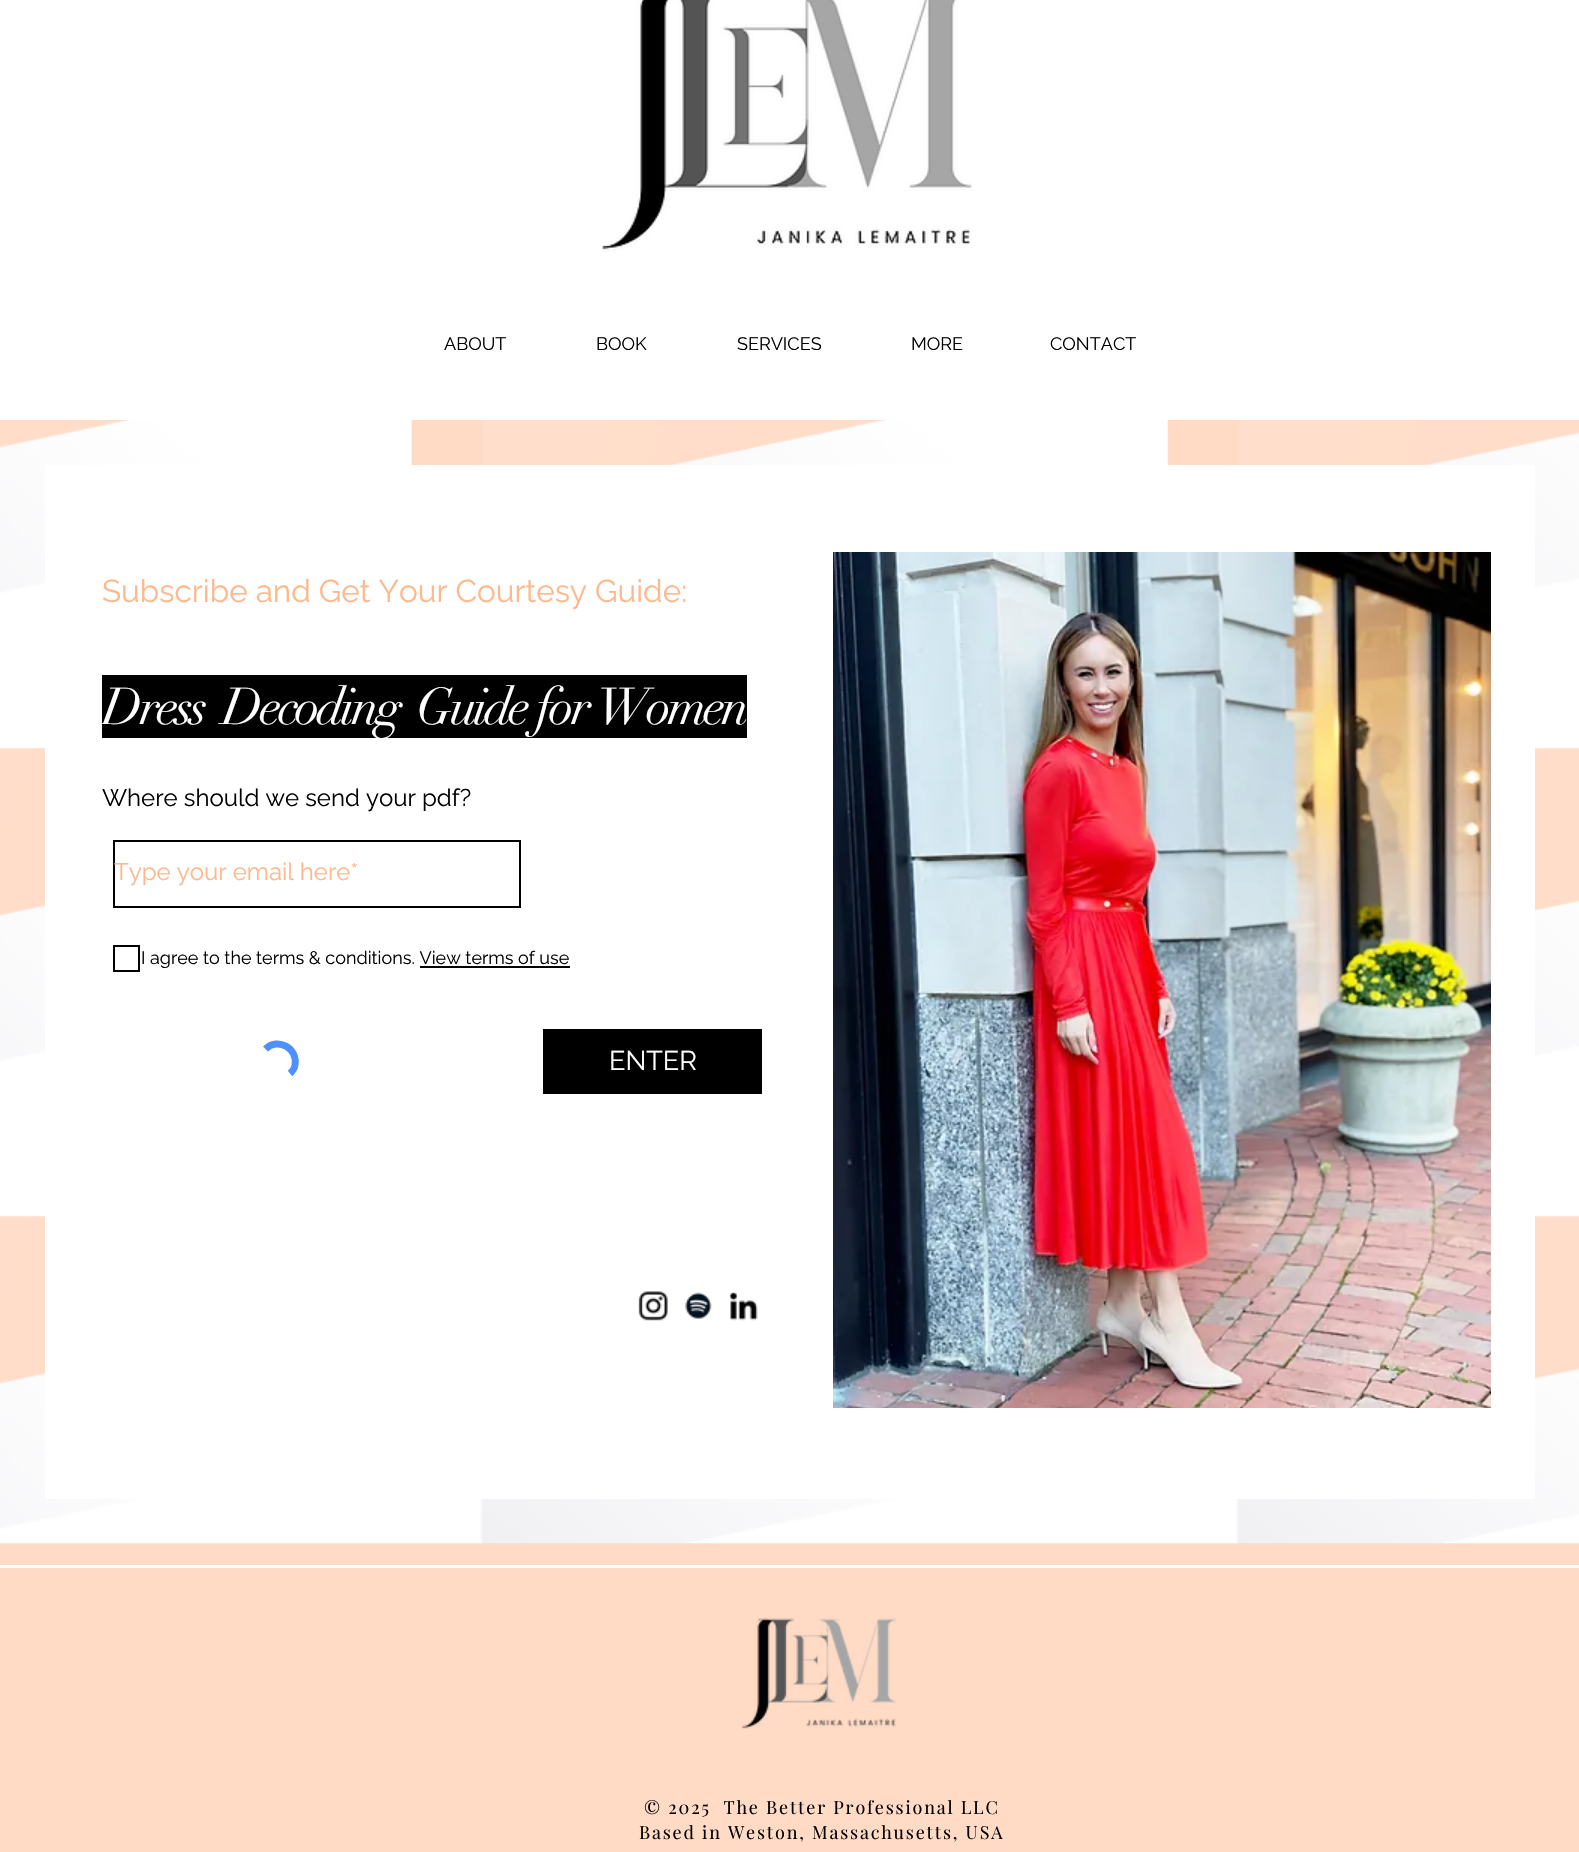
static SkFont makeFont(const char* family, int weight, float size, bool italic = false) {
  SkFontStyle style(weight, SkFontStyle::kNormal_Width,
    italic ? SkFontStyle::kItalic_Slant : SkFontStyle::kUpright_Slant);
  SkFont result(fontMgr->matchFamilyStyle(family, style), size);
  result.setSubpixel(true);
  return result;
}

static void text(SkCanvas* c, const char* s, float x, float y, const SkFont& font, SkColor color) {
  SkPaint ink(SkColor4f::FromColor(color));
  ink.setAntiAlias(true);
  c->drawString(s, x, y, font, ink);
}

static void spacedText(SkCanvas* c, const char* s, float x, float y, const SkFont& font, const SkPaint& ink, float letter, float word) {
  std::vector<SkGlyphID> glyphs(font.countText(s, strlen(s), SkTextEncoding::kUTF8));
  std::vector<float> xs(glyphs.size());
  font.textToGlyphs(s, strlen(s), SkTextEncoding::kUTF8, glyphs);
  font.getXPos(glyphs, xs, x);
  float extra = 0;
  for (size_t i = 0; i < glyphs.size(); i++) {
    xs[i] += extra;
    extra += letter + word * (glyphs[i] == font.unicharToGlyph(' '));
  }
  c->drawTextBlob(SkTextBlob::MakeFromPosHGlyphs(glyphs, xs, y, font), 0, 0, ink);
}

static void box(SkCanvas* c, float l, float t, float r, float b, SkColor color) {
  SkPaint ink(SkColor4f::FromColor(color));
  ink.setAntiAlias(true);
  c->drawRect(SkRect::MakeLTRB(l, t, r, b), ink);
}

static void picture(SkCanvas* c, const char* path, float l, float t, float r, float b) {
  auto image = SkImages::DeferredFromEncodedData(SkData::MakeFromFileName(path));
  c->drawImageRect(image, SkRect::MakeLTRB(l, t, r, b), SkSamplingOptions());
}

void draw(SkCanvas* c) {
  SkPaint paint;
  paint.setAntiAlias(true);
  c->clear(0xffffffff);
  picture(c, "img_01.png", 601, 0, 973, 252);
  SkFont face1 = makeFont("Raleway", 400, 18);
  text(c, "ABOUT", 444, 350, face1, 0xff000000);
  text(c, "BOOK", 596, 350, face1, 0xff000000);
  text(c, "SERVICES", 737, 350, face1, 0xff000000);
  text(c, "MORE", 911, 350, face1, 0xff000000);
  text(c, "CONTACT", 1050, 350, face1, 0xff000000);
  box(c, 0, 420, 1579, 1852, 0xffffdbc6);
  picture(c, "img_02.png", 0, 420, 1579, 1544);
  box(c, 45, 465, 1535, 1499, 0xffffffff);
  SkFont face2 = makeFont("Raleway", 400, 31.5f);
  text(c, "Subscribe and Get Your Courtesy Guide:", 102, 602, face2, 0xfffeb88d);
  box(c, 102, 675, 747, 738, 0xff000000);
  SkFont face3 = makeFont("didot", 400, 51);
  paint.setColor(0xffffffff);
  spacedText(c, "Dress  Decoding  Guide for Women", 102, 724, face3, paint, -3.3f, 0);
  SkFont face4 = makeFont("Raleway", 400, 24);
  text(c, "Where should we send your pdf?", 102, 806, face4, 0xff000000);
  paint.setStyle(SkPaint::kStroke_Style);
  paint.setStrokeWidth(2);
  paint.setColor(0xff000000);
  c->drawRect(SkRect::MakeLTRB(114, 841, 520, 907), paint);
  text(c, "Type your email here*", 114, 880, face4, 0xfffeb88d);
  c->drawRect(SkRect::MakeLTRB(114, 946, 139, 971), paint);
  text(c, "I agree to the terms & conditions. View terms of use", 141, 964, face1, 0xff000000);
  box(c, 420, 966, 570, 968, 0xff000000);
  paint.setStrokeWidth(6.9f);
  paint.setColor(0xff4d90fe);
  c->drawPath(SkPathBuilder().moveTo(265.5f, 1049).cubicTo(277.5f, 1037, 298, 1048, 295, 1065).cubicTo(294.5f, 1068, 292.5f, 1071.5f, 290, 1073.5f).detach(), paint);
  box(c, 543, 1029, 762, 1094, 0xff000000);
  SkFont face5 = makeFont("Raleway", 400, 27);
  text(c, "ENTER", 609, 1070, face5, 0xffffffff);
  picture(c, "img_03.png", 638, 1291, 668, 1321);
  picture(c, "img_04.png", 685, 1292, 712, 1319);
  picture(c, "img_05.png", 729, 1292, 758, 1321);
  picture(c, "img_06.png", 833, 552, 1491, 1409);
  box(c, 0, 1565, 1579, 1568, 0xffffffff);
  picture(c, "img_07.png", 741, 1618, 896, 1729);
  SkFont face6 = makeFont("Playfair Display", 400, 18);
  paint.setStyle(SkPaint::kFill_Style);
  paint.setColor(0xff000000);
  spacedText(c, "© 2025  The Better Professional LLC", 644, 1814, face6, paint, 1.8f, 0);
  spacedText(c, "Based in Weston, Massachusetts, USA", 639, 1839, face6, paint, 1.8f, 0);
}
